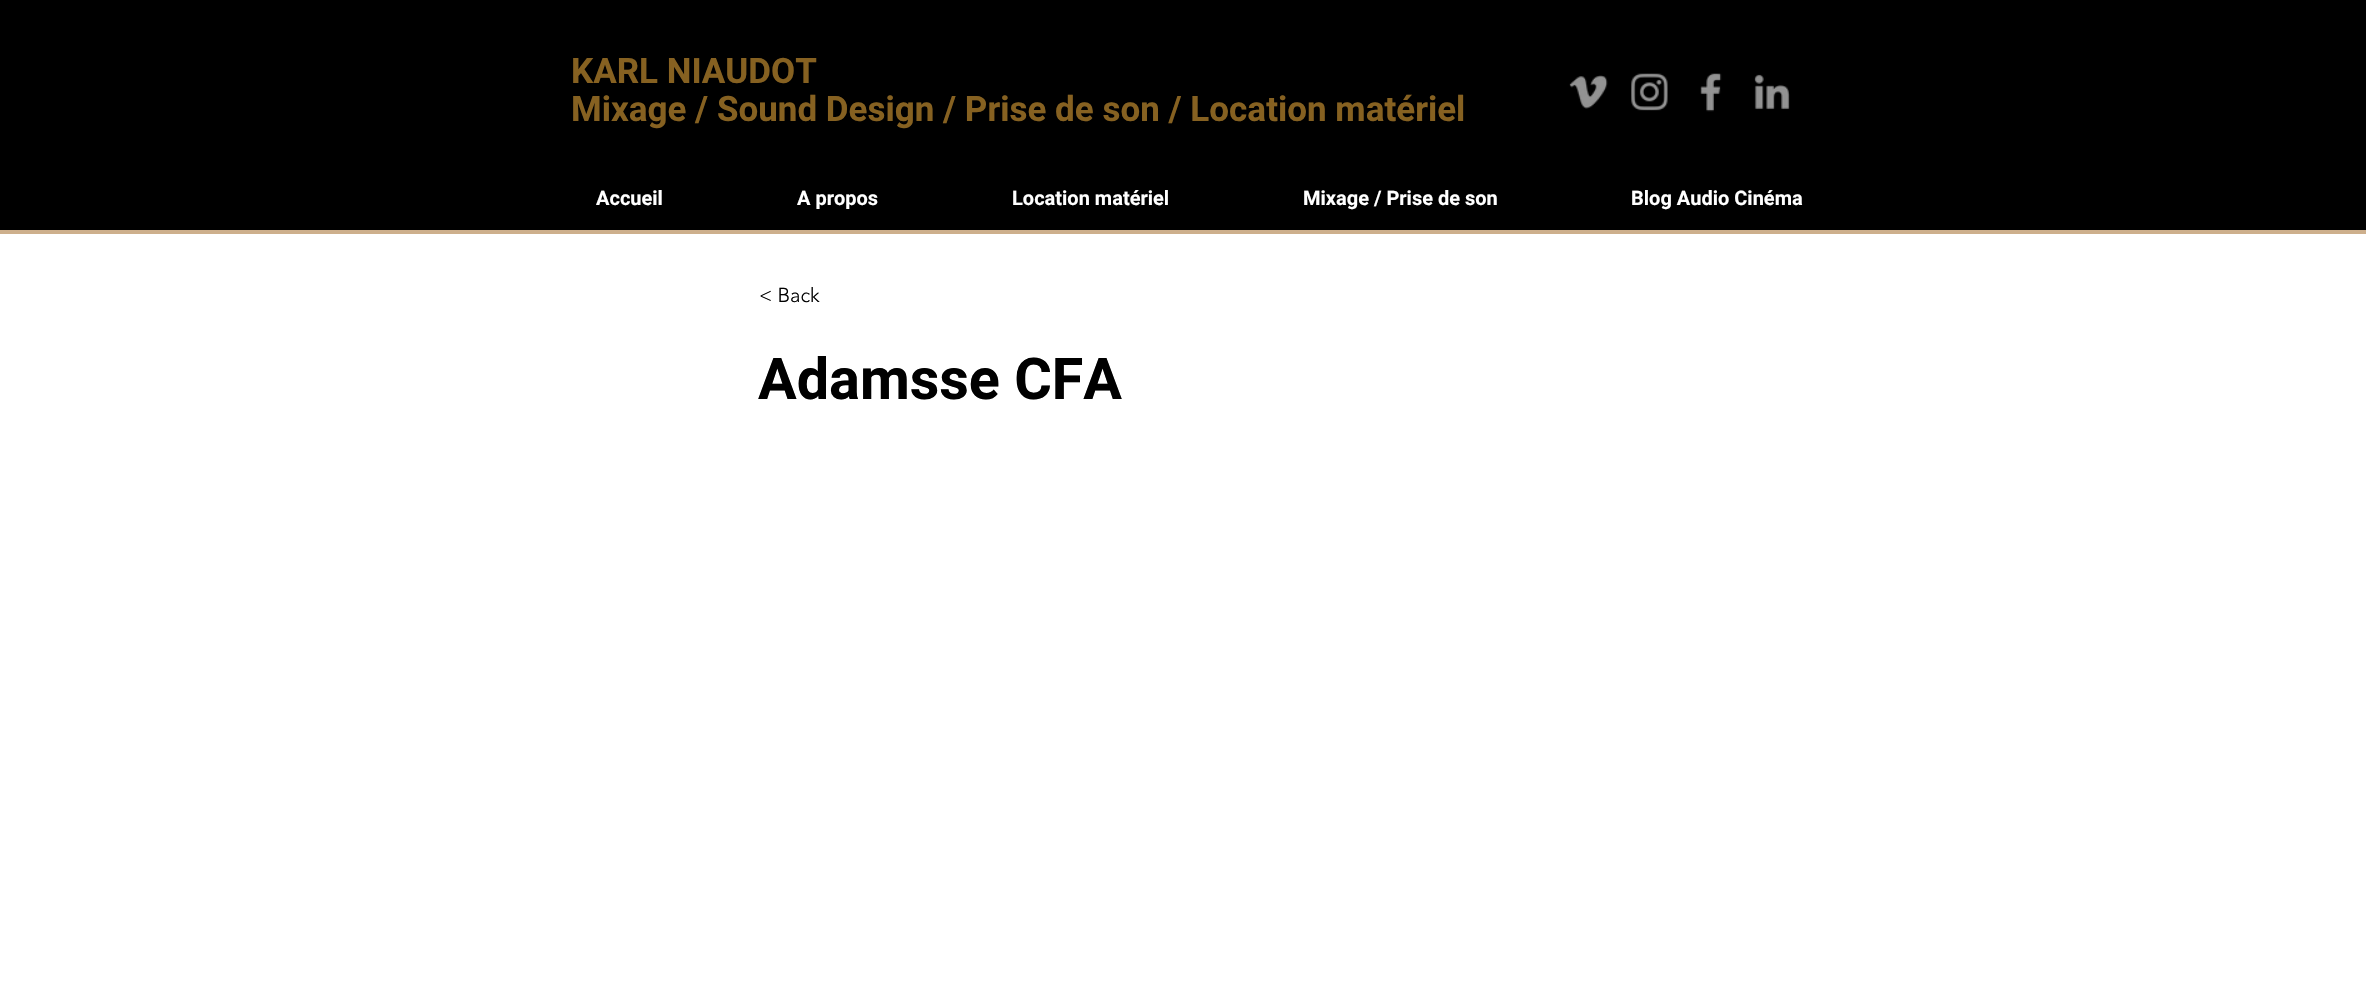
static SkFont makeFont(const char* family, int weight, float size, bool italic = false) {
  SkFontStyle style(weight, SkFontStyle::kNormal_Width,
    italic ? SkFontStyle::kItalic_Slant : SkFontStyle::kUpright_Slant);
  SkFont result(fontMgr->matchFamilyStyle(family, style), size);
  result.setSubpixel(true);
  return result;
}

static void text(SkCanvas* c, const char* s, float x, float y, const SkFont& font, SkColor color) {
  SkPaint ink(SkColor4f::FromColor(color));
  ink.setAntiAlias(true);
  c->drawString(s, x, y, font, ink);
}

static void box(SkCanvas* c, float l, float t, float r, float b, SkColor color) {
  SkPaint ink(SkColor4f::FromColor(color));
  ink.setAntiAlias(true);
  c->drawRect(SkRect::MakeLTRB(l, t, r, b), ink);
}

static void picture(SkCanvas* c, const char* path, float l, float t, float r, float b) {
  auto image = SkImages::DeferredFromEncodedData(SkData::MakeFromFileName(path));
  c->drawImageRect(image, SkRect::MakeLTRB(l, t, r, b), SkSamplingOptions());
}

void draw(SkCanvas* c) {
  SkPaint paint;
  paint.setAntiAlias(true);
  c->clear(0xffffffff);
  box(c, 0, 0, 2366, 230, 0xff000000);
  box(c, 0, 230, 2366, 234, 0xffcdaf8c);
  SkFont face1 = makeFont("Roboto", 700, 35);
  text(c, "KARL NIAUDOT", 571, 83, face1, 0xff866121);
  text(c, "Mixage / Sound Design / Prise de son / Location matériel", 571, 121, face1, 0xff866121);
  picture(c, "img_01.png", 1569, 75, 1608, 109);
  picture(c, "img_02.png", 1631, 73, 1668, 111);
  picture(c, "img_03.png", 1700, 73, 1722, 112);
  picture(c, "img_04.png", 1754, 74, 1790, 110);
  SkFont face2 = makeFont("Roboto", 700, 20);
  text(c, "Accueil", 596, 205, face2, 0xffffffff);
  text(c, "A propos", 797, 205, face2, 0xffffffff);
  text(c, "Location matériel", 1012, 205, face2, 0xffffffff);
  text(c, "Mixage / Prise de son", 1303, 205, face2, 0xffffffff);
  text(c, "Blog Audio Cinéma", 1631, 205, face2, 0xffffffff);
  SkFont face3 = makeFont("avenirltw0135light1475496", 300, 20);
  text(c, "< Back", 759, 302, face3, 0xff000000);
  SkFont face4 = makeFont("Roboto", 700, 57.5f);
  text(c, "Adamsse CFA", 758, 399, face4, 0xff000000);
}
